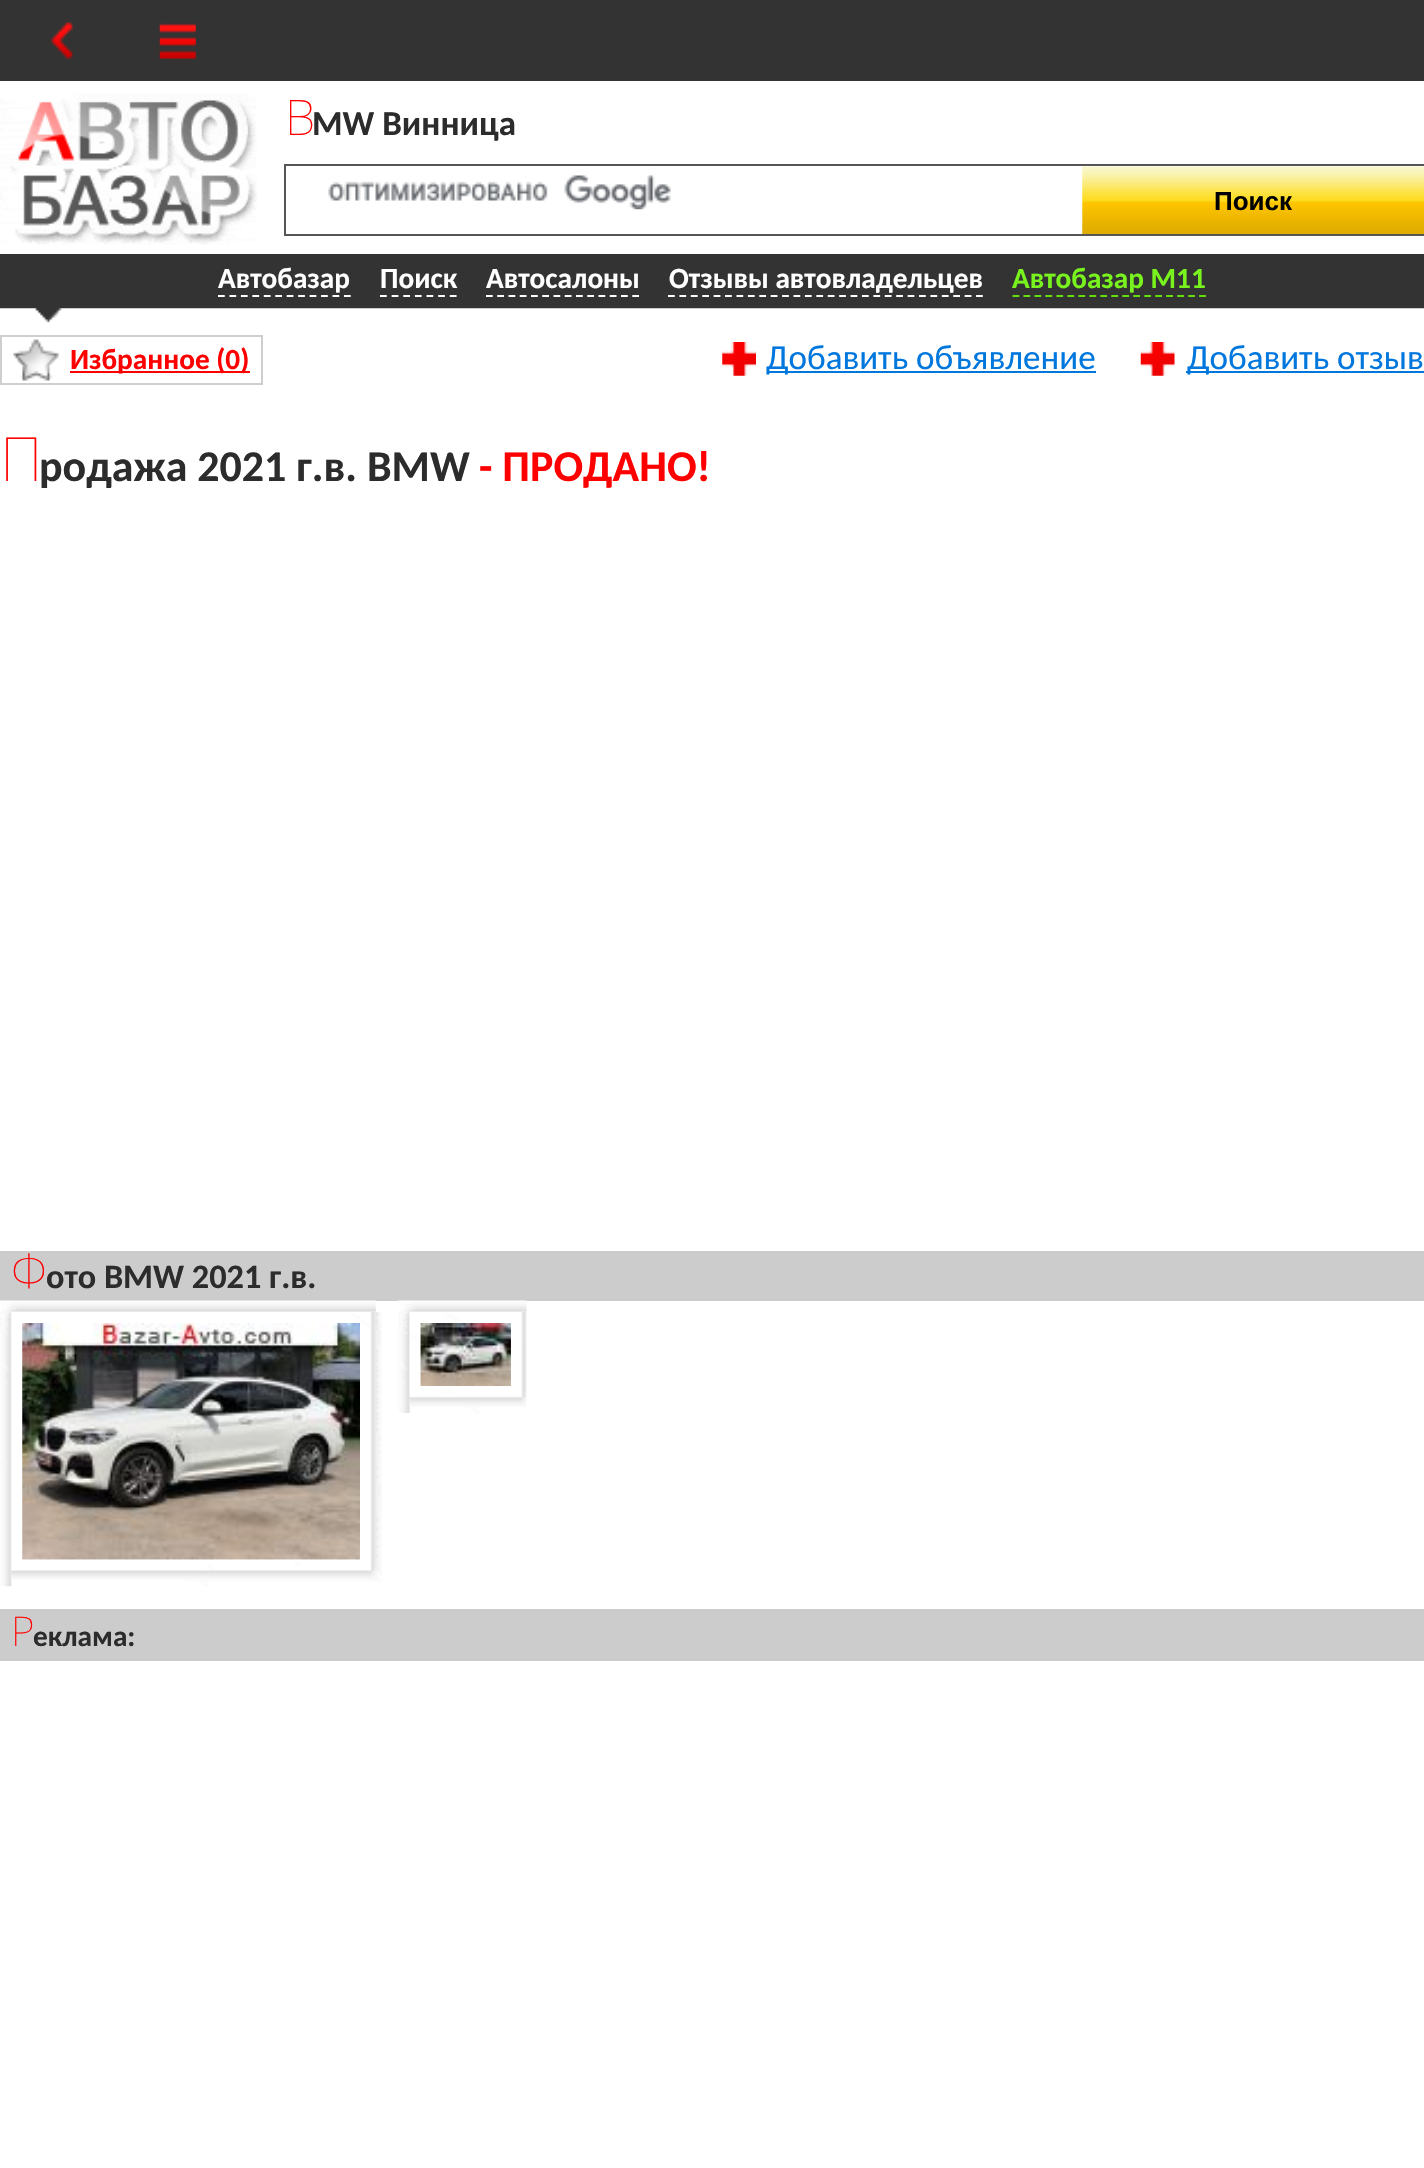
static SkFont makeFont(const char* family, int weight, float size, bool italic = false) {
  SkFontStyle style(weight, SkFontStyle::kNormal_Width,
    italic ? SkFontStyle::kItalic_Slant : SkFontStyle::kUpright_Slant);
  SkFont result(fontMgr->matchFamilyStyle(family, style), size);
  result.setSubpixel(true);
  return result;
}

static void text(SkCanvas* c, const char* s, float x, float y, const SkFont& font, SkColor color) {
  SkPaint ink(SkColor4f::FromColor(color));
  ink.setAntiAlias(true);
  c->drawString(s, x, y, font, ink);
}

static void box(SkCanvas* c, float l, float t, float r, float b, SkColor color) {
  SkPaint ink(SkColor4f::FromColor(color));
  ink.setAntiAlias(true);
  c->drawRect(SkRect::MakeLTRB(l, t, r, b), ink);
}

static void picture(SkCanvas* c, const char* path, float l, float t, float r, float b) {
  auto image = SkImages::DeferredFromEncodedData(SkData::MakeFromFileName(path));
  c->drawImageRect(image, SkRect::MakeLTRB(l, t, r, b), SkSamplingOptions());
}

void draw(SkCanvas* c) {
  SkPaint paint;
  paint.setAntiAlias(true);
  c->clear(0xffffffff);
  box(c, 0, 0, 1424, 81, 0xff333333);
  picture(c, "img_01.png", 51, 22, 73, 59);
  picture(c, "img_02.png", 159, 23, 196, 59);
  picture(c, "img_03.png", 0, 93, 257, 245);
  SkFont face1 = makeFont("Noto Sans", 100, 49);
  text(c, "B", 285, 135, face1, 0xffff0000);
  SkFont face2 = makeFont("Carlito", 700, 35);
  text(c, "MW Винница", 312, 135, face2, 0xff2c2c2c);
  picture(c, "img_04.png", 328, 175, 671, 210);
  paint.setStyle(SkPaint::kStroke_Style);
  paint.setStrokeWidth(2);
  paint.setColor(0xff555555);
  c->drawRect(SkRect::MakeLTRB(285, 165, 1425, 235), paint);
  picture(c, "img_05.png", 1082, 166, 1424, 234);
  SkFont face3 = makeFont("Liberation Sans", 700, 26);
  text(c, "Поиск", 1214, 210, face3, 0xff000000);
  box(c, 0, 254, 1424, 323, 0xff333333);
  picture(c, "img_06.png", 0, 308, 1424, 324);
  SkFont face4 = makeFont("Carlito", 700, 29.25f);
  text(c, "Автобазар", 218, 288, face4, 0xffffffff);
  paint.setStrokeWidth(2.2f);
  paint.setColor(0xffffffff);
  paint.setPathEffect(SkDashPathEffect::Make({{6.75f, 4.7f}}, 0));
  c->drawPath(SkPathBuilder().moveTo(218, 296).lineTo(351, 296).detach(), paint);
  paint.setPathEffect(nullptr);
  text(c, "Поиск", 380, 288, face4, 0xffffffff);
  paint.setPathEffect(SkDashPathEffect::Make({{6.75f, 4.88f}}, 0));
  c->drawPath(SkPathBuilder().moveTo(380, 296).lineTo(457, 296).detach(), paint);
  paint.setPathEffect(nullptr);
  text(c, "Автосалоны", 486, 288, face4, 0xffffffff);
  paint.setPathEffect(SkDashPathEffect::Make({{6.75f, 4.5f}}, 0));
  c->drawPath(SkPathBuilder().moveTo(486, 296).lineTo(639, 296).detach(), paint);
  paint.setPathEffect(nullptr);
  text(c, "Отзывы автовладельцев", 669, 288, face4, 0xffffffff);
  paint.setPathEffect(SkDashPathEffect::Make({{6.75f, 4.66f}}, 0));
  c->drawPath(SkPathBuilder().moveTo(668, 296).lineTo(983, 296).detach(), paint);
  paint.setPathEffect(nullptr);
  text(c, "Автобазар M11", 1012, 288, face4, 0xff78f31d);
  paint.setColor(0xff65de0c);
  paint.setPathEffect(SkDashPathEffect::Make({{6.75f, 4.23f}}, 0));
  c->drawPath(SkPathBuilder().moveTo(1012.5f, 296).lineTo(1206, 296).detach(), paint);
  paint.setPathEffect(nullptr);
  picture(c, "img_07.png", 13, 339, 59, 381);
  paint.setStrokeWidth(2);
  paint.setColor(0xffcfcfcf);
  c->drawRect(SkRect::MakeLTRB(1, 336, 262, 384), paint);
  box(c, 70, 371, 250, 373, 0xffff0000);
  text(c, "Избранное (0)", 70, 369, face4, 0xffff0000);
  picture(c, "img_08.png", 722, 342, 756, 376);
  box(c, 767, 371, 1096, 373, 0xff0077dd);
  SkFont face5 = makeFont("Carlito", 400, 35);
  text(c, "Добавить объявление", 766, 369, face5, 0xff0077dd);
  picture(c, "img_09.png", 1140, 342, 1175, 376);
  box(c, 1186, 371, 1424, 373, 0xff0077dd);
  text(c, "Добавить отзыв", 1187, 369, face5, 0xff0077dd);
  SkFont face6 = makeFont("Noto Sans", 100, 61);
  text(c, "П", 0, 481, face6, 0xffff0000);
  SkFont face7 = makeFont("Carlito", 700, 43.9f);
  text(c, "родажа 2021 г.в. BMW", 39, 481, face7, 0xff2c2c2c);
  text(c, "- ПРОДАНО!", 479, 481, face7, 0xffff0000);
  box(c, 0, 1251, 1424, 1301, 0xffcccccc);
  SkFont face8 = makeFont("Noto Sans", 100, 48);
  text(c, "Ф", 11, 1288, face8, 0xffff0000);
  SkFont face9 = makeFont("Carlito", 700, 34.25f);
  text(c, "ото BMW 2021 г.в.", 46, 1288, face9, 0xff2c2c2c);
  picture(c, "img_10.png", 0, 1300, 376, 1587);
  picture(c, "img_11.png", 11, 1312, 382, 1582);
  picture(c, "img_12.png", 22, 1323, 360, 1560);
  picture(c, "img_13.png", 398, 1300, 527, 1413);
  picture(c, "img_14.png", 409, 1312, 527, 1407);
  picture(c, "img_15.png", 420, 1323, 511, 1386);
  box(c, 0, 1609, 1424, 1661, 0xffcccccc);
  SkFont face10 = makeFont("Noto Sans", 100, 41);
  text(c, "Р", 11, 1646, face10, 0xffff0000);
  text(c, "еклама:", 33, 1646, face4, 0xff2c2c2c);
}
